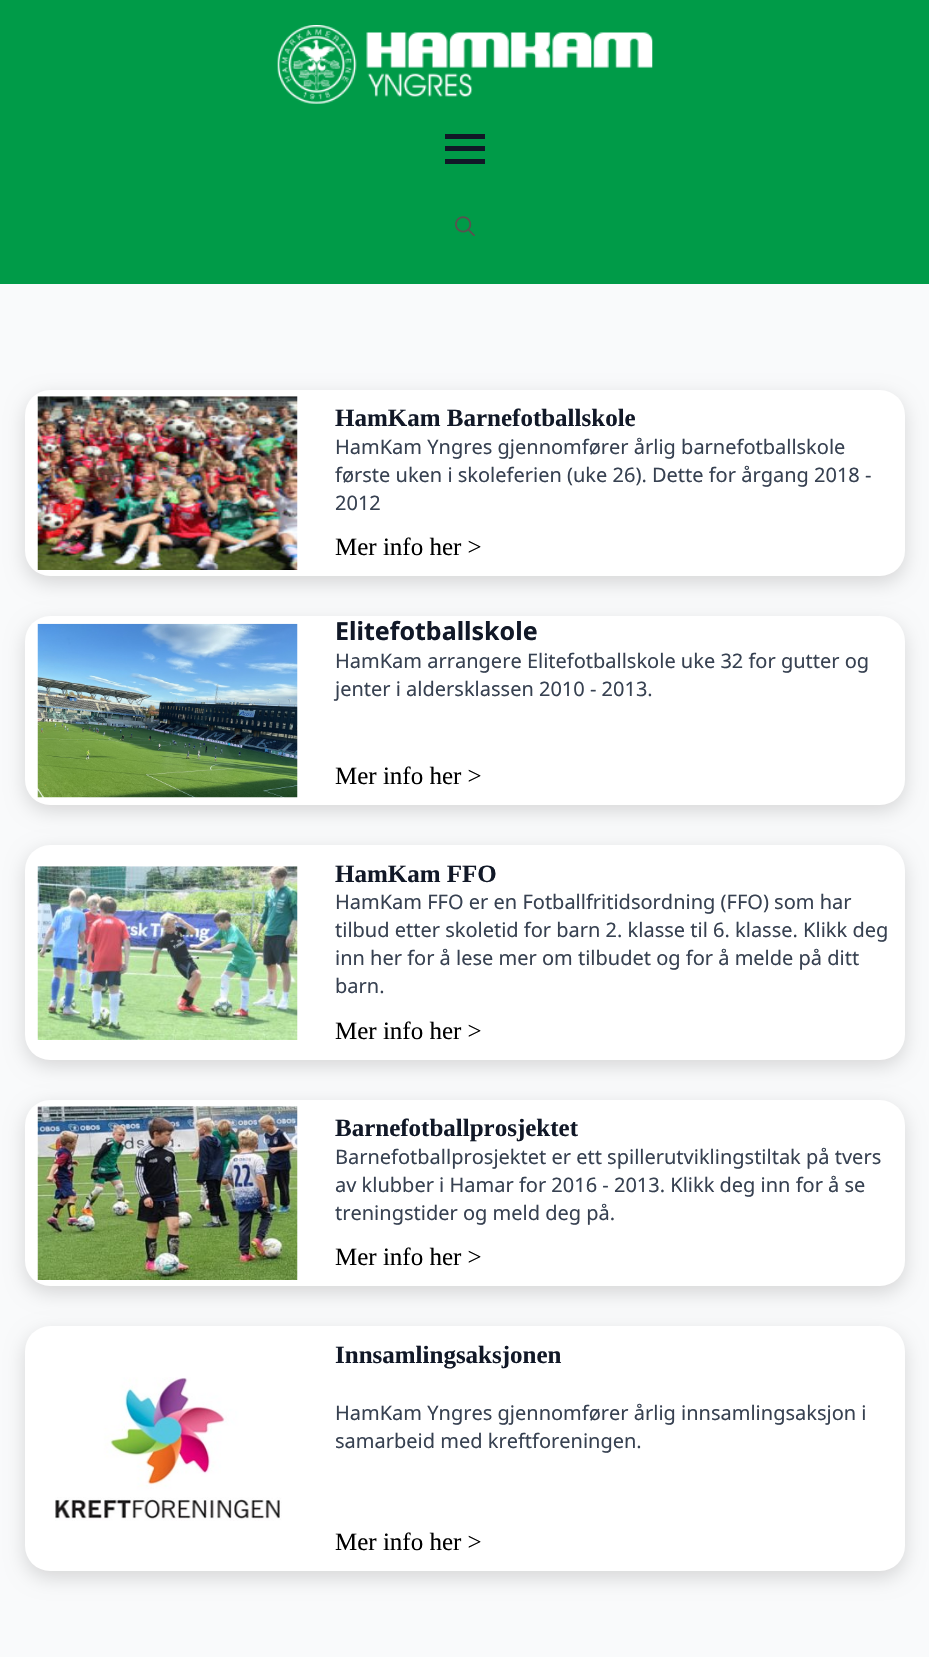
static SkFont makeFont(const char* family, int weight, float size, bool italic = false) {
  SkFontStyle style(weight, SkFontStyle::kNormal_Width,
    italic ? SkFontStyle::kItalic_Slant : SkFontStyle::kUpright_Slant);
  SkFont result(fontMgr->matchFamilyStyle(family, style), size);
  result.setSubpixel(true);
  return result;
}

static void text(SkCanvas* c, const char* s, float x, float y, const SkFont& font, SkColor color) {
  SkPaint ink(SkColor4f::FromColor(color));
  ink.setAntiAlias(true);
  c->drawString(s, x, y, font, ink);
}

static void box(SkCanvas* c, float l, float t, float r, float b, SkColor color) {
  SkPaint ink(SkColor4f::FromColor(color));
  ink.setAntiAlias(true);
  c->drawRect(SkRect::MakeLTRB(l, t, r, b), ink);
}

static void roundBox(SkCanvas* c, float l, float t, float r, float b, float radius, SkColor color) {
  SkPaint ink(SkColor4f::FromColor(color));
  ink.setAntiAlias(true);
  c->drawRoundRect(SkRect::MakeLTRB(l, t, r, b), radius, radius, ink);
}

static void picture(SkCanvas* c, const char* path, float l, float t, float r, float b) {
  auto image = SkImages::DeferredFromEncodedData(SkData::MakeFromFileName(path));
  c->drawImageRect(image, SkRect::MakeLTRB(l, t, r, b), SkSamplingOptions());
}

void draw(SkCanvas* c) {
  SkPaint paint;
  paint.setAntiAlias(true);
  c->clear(0xfff9fafb);
  box(c, 0, 0, 929, 284, 0xff009b48);
  picture(c, "img_01.png", 277, 25, 653, 104);
  box(c, 445, 146, 485, 151, 0xff111827);
  box(c, 445, 134, 485, 139, 0xff111827);
  box(c, 445, 159, 485, 164, 0xff111827);
  picture(c, "img_02.png", 455, 216, 475, 236);
  paint.setColor(0x24000000);
  paint.setMaskFilter(SkMaskFilter::MakeBlur(kNormal_SkBlurStyle, 9.5f));
  c->drawRoundRect(SkRect::MakeLTRB(25, 396, 905, 583), 25, 25, paint);
  paint.setMaskFilter(nullptr);
  roundBox(c, 25, 390, 905, 576, 25, 0xffffffff);
  picture(c, "img_03.png", 37, 396, 298, 570);
  SkFont face1 = makeFont("Liberation Serif", 700, 25);
  text(c, "HamKam Barnefotballskole", 335, 426, face1, 0xff111827);
  SkFont face2 = makeFont("Noto Sans", 400, 20);
  text(c, "HamKam Yngres gjennomfører årlig barnefotballskole", 335, 454, face2, 0xff374151);
  text(c, "første uken i skoleferien (uke 26). Dette for årgang 2018 -", 335, 482, face2, 0xff374151);
  text(c, "2012", 335, 510, face2, 0xff374151);
  SkFont face3 = makeFont("Liberation Serif", 400, 25);
  text(c, "Mer info her >", 335, 555, face3, 0xff000000);
  paint.setMaskFilter(SkMaskFilter::MakeBlur(kNormal_SkBlurStyle, 9.5f));
  c->drawRoundRect(SkRect::MakeLTRB(25, 623, 905, 811), 25, 25, paint);
  paint.setMaskFilter(nullptr);
  roundBox(c, 25, 616, 905, 805, 25, 0xffffffff);
  picture(c, "img_04.png", 37, 623, 298, 798);
  SkFont face4 = makeFont("Noto Sans", 700, 25);
  text(c, "Elitefotballskole", 335, 640, face4, 0xff111827);
  text(c, "HamKam arrangere Elitefotballskole uke 32 for gutter og", 335, 668, face2, 0xff374151);
  text(c, "jenter i aldersklassen 2010 - 2013.", 335, 696, face2, 0xff374151);
  text(c, "Mer info her >", 335, 784, face3, 0xff000000);
  paint.setMaskFilter(SkMaskFilter::MakeBlur(kNormal_SkBlurStyle, 9.5f));
  c->drawRoundRect(SkRect::MakeLTRB(25, 851, 905, 1066), 25, 25, paint);
  paint.setMaskFilter(nullptr);
  roundBox(c, 25, 845, 905, 1060, 25, 0xffffffff);
  picture(c, "img_05.png", 37, 866, 298, 1040);
  text(c, "HamKam FFO", 335, 882, face1, 0xff111827);
  text(c, "HamKam FFO er en Fotballfritidsordning (FFO) som har", 335, 909, face2, 0xff374151);
  text(c, "tilbud etter skoletid for barn 2. klasse til 6. klasse. Klikk deg", 335, 937, face2, 0xff374151);
  text(c, "inn her for å lese mer om tilbudet og for å melde på ditt", 335, 965, face2, 0xff374151);
  text(c, "barn.", 335, 993, face2, 0xff374151);
  text(c, "Mer info her >", 335, 1039, face3, 0xff000000);
  paint.setMaskFilter(SkMaskFilter::MakeBlur(kNormal_SkBlurStyle, 9.5f));
  c->drawRoundRect(SkRect::MakeLTRB(25, 1106, 905, 1293), 25, 25, paint);
  paint.setMaskFilter(nullptr);
  roundBox(c, 25, 1100, 905, 1286, 25, 0xffffffff);
  picture(c, "img_06.png", 37, 1106, 298, 1280);
  text(c, "Barnefotballprosjektet", 335, 1136, face1, 0xff111827);
  text(c, "Barnefotballprosjektet er ett spillerutviklingstiltak på tvers", 335, 1164, face2, 0xff374151);
  text(c, "av klubber i Hamar for 2016 - 2013. Klikk deg inn for å se", 335, 1192, face2, 0xff374151);
  text(c, "treningstider og meld deg på.", 335, 1220, face2, 0xff374151);
  text(c, "Mer info her >", 335, 1265, face3, 0xff000000);
  paint.setMaskFilter(SkMaskFilter::MakeBlur(kNormal_SkBlurStyle, 9.5f));
  c->drawRoundRect(SkRect::MakeLTRB(25, 1333, 905, 1578), 25, 25, paint);
  paint.setMaskFilter(nullptr);
  roundBox(c, 25, 1326, 905, 1571, 25, 0xffffffff);
  picture(c, "img_07.png", 55, 1377, 282, 1521);
  text(c, "Innsamlingsaksjonen", 335, 1363, face1, 0xff111827);
  text(c, "HamKam Yngres gjennomfører årlig innsamlingsaksjon i", 335, 1420, face2, 0xff374151);
  text(c, "samarbeid med kreftforeningen.", 335, 1448, face2, 0xff374151);
  text(c, "Mer info her >", 335, 1550, face3, 0xff000000);
}
